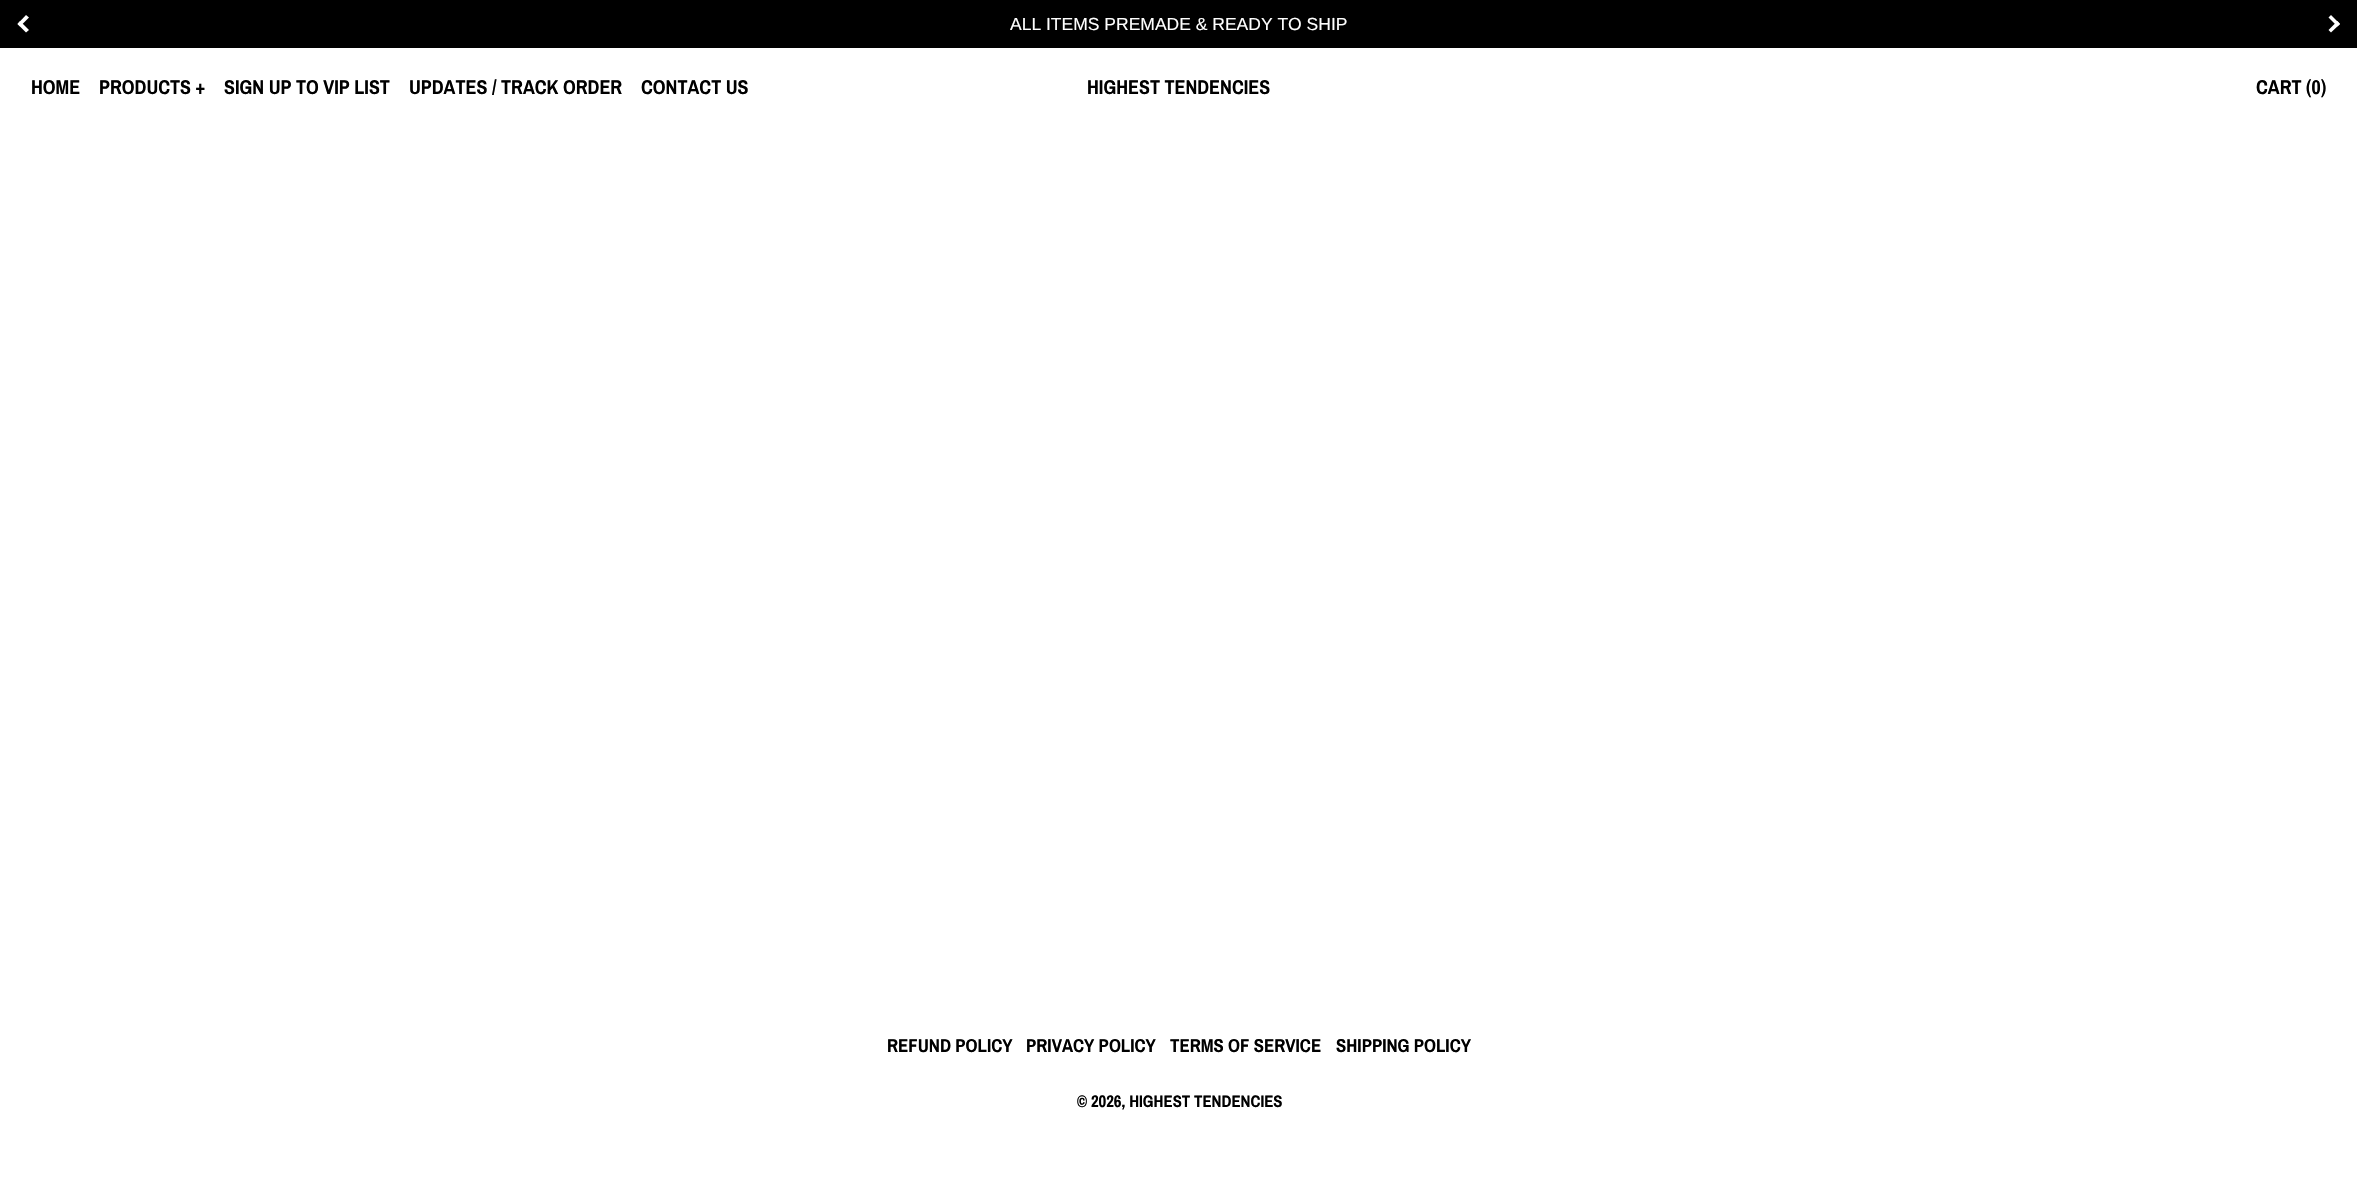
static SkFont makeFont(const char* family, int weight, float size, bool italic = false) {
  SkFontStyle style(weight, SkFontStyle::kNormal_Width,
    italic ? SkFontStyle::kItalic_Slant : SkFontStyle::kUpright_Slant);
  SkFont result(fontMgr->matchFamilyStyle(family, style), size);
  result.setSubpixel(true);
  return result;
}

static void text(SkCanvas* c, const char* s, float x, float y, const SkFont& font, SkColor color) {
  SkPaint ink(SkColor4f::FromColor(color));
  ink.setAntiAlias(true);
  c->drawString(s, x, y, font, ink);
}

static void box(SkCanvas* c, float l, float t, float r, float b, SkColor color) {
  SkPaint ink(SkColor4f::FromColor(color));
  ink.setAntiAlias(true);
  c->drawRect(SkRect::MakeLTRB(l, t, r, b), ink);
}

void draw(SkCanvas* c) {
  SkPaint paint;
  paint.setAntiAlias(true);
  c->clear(0xffffffff);
  box(c, 0, 0, 2357, 48, 0xff000000);
  paint.setColor(0xffffffff);
  c->drawPath(SkPathBuilder().moveTo(26, 32.5f).lineTo(17.5f, 24).lineTo(20, 21).lineTo(29, 30).close().detach(), paint);
  c->drawPath(SkPathBuilder().moveTo(20, 26.5f).lineTo(17.5f, 24).lineTo(26, 15).lineTo(29, 17.5f).close().detach(), paint);
  SkFont face1 = makeFont("Liberation Sans", 400, 17.5f);
  text(c, "ALL ITEMS PREMADE & READY TO SHIP", 1010, 30, face1, 0xffffffff);
  c->drawPath(SkPathBuilder().moveTo(2331, 15).lineTo(2340, 24).lineTo(2337.5f, 26.5f).lineTo(2328.5f, 17.5f).close().detach(), paint);
  c->drawPath(SkPathBuilder().moveTo(2337.5f, 21).lineTo(2340, 24).lineTo(2331, 32.5f).lineTo(2328.5f, 30).close().detach(), paint);
  SkFont face2 = makeFont("Archivo Narrow", 700, 20);
  text(c, "HOME", 31, 94, face2, 0xff000000);
  text(c, "PRODUCTS +", 99, 94, face2, 0xff000000);
  text(c, "SIGN UP TO VIP LIST", 224, 94, face2, 0xff000000);
  text(c, "UPDATES / TRACK ORDER", 409, 94, face2, 0xff000000);
  text(c, "CONTACT US", 641, 94, face2, 0xff000000);
  text(c, "HIGHEST TENDENCIES", 1087, 94, face2, 0xff000000);
  text(c, "CART (0)", 2256, 94, face2, 0xff000000);
  SkFont face3 = makeFont("Archivo Narrow", 700, 18.75f);
  text(c, "REFUND POLICY", 887, 1052, face3, 0xff000000);
  text(c, "PRIVACY POLICY", 1026, 1052, face3, 0xff000000);
  text(c, "TERMS OF SERVICE", 1170, 1052, face3, 0xff000000);
  text(c, "SHIPPING POLICY", 1336, 1052, face3, 0xff000000);
  SkFont face4 = makeFont("Archivo Narrow", 700, 16.75f);
  text(c, "© 2026, HIGHEST TENDENCIES", 1077, 1107, face4, 0xff000000);
}
